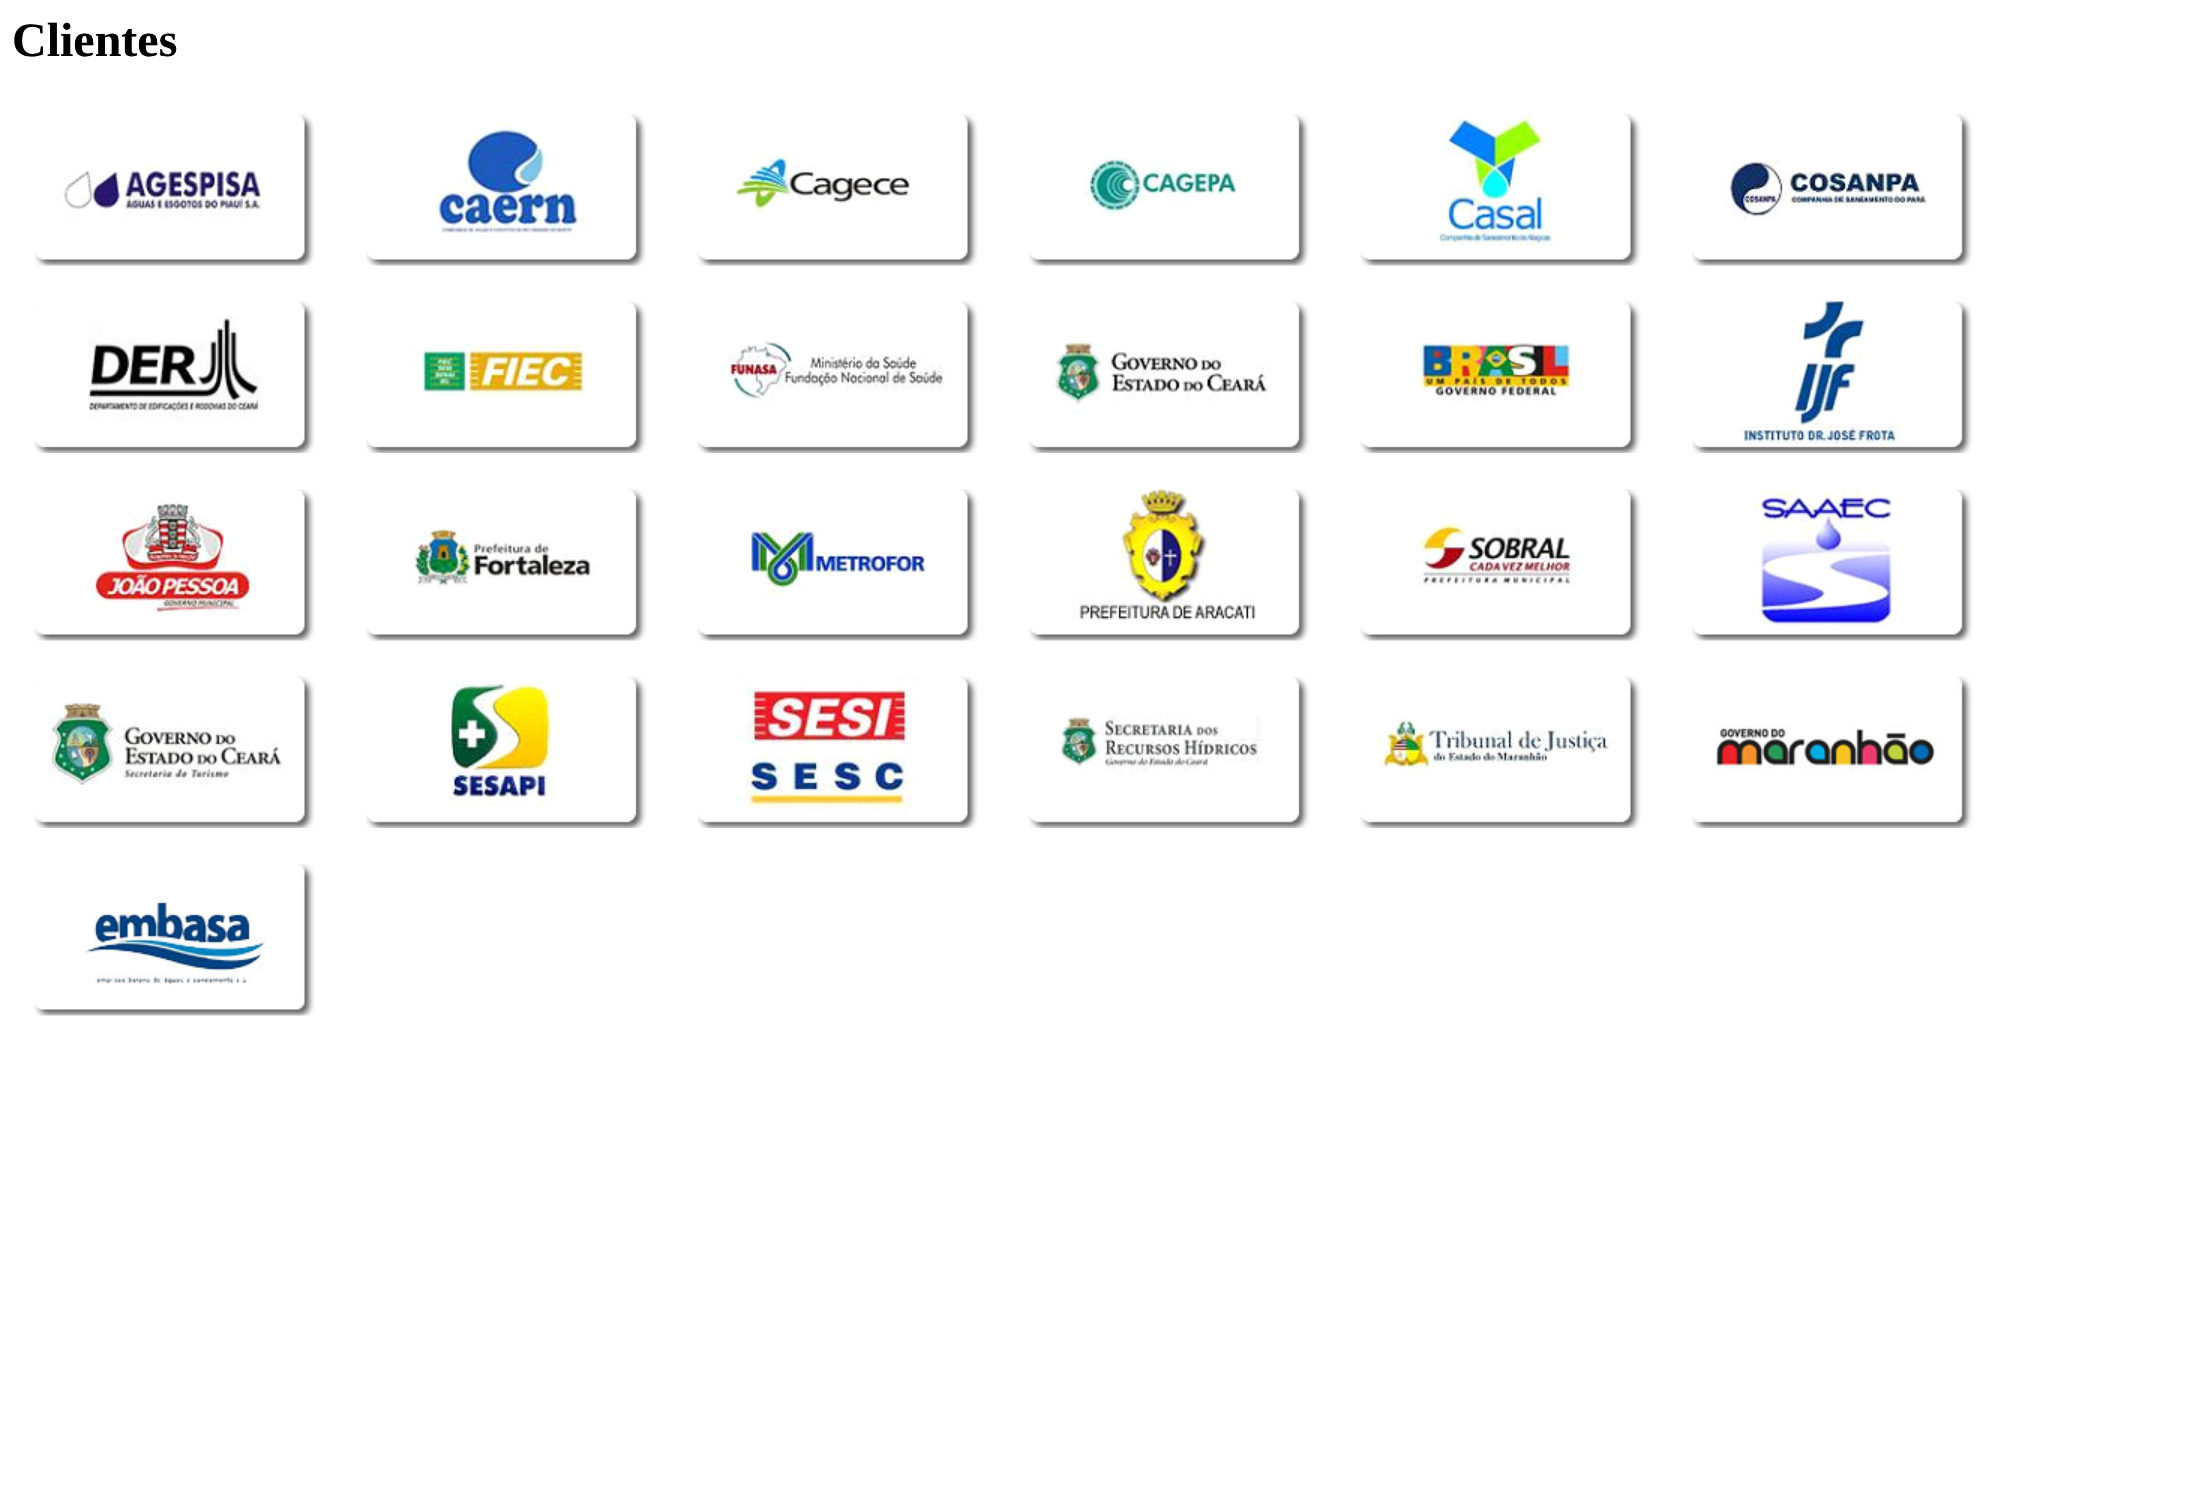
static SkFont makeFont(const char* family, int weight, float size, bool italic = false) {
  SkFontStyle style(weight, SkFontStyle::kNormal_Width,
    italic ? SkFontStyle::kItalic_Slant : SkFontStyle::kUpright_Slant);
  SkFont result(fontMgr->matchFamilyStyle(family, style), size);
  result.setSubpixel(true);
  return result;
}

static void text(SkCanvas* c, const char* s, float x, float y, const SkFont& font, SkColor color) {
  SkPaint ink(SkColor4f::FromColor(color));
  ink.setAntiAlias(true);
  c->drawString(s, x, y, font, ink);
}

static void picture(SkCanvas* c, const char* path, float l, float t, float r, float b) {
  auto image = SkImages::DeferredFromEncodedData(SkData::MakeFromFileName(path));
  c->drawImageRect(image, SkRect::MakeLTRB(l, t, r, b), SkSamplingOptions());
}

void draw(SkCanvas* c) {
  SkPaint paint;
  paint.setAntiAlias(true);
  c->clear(0xffffffff);
  SkFont face1 = makeFont("Liberation Serif", 700, 48);
  text(c, "Clientes", 12, 56, face1, 0xff000000);
  picture(c, "img_01.png", 34, 114, 315, 266);
  picture(c, "img_02.png", 366, 114, 646, 266);
  picture(c, "img_03.png", 697, 114, 978, 266);
  picture(c, "img_04.png", 1029, 114, 1310, 266);
  picture(c, "img_05.png", 1360, 114, 1641, 266);
  picture(c, "img_06.png", 1692, 114, 1973, 266);
  picture(c, "img_07.png", 34, 301, 315, 453);
  picture(c, "img_08.png", 366, 301, 647, 453);
  picture(c, "img_09.png", 697, 301, 978, 453);
  picture(c, "img_10.png", 1029, 301, 1310, 453);
  picture(c, "img_11.png", 1360, 301, 1641, 453);
  picture(c, "img_12.png", 1692, 301, 1973, 453);
  picture(c, "img_13.png", 34, 489, 315, 641);
  picture(c, "img_14.png", 366, 489, 647, 641);
  picture(c, "img_15.png", 697, 489, 978, 641);
  picture(c, "img_16.png", 1029, 489, 1310, 641);
  picture(c, "img_17.png", 1360, 489, 1641, 641);
  picture(c, "img_18.png", 1692, 489, 1973, 641);
  picture(c, "img_19.png", 34, 676, 315, 828);
  picture(c, "img_20.png", 366, 676, 647, 828);
  picture(c, "img_21.png", 697, 676, 978, 828);
  picture(c, "img_22.png", 1029, 676, 1310, 828);
  picture(c, "img_23.png", 1360, 676, 1641, 828);
  picture(c, "img_24.png", 1692, 676, 1973, 828);
  picture(c, "img_25.png", 34, 864, 315, 1016);
}
